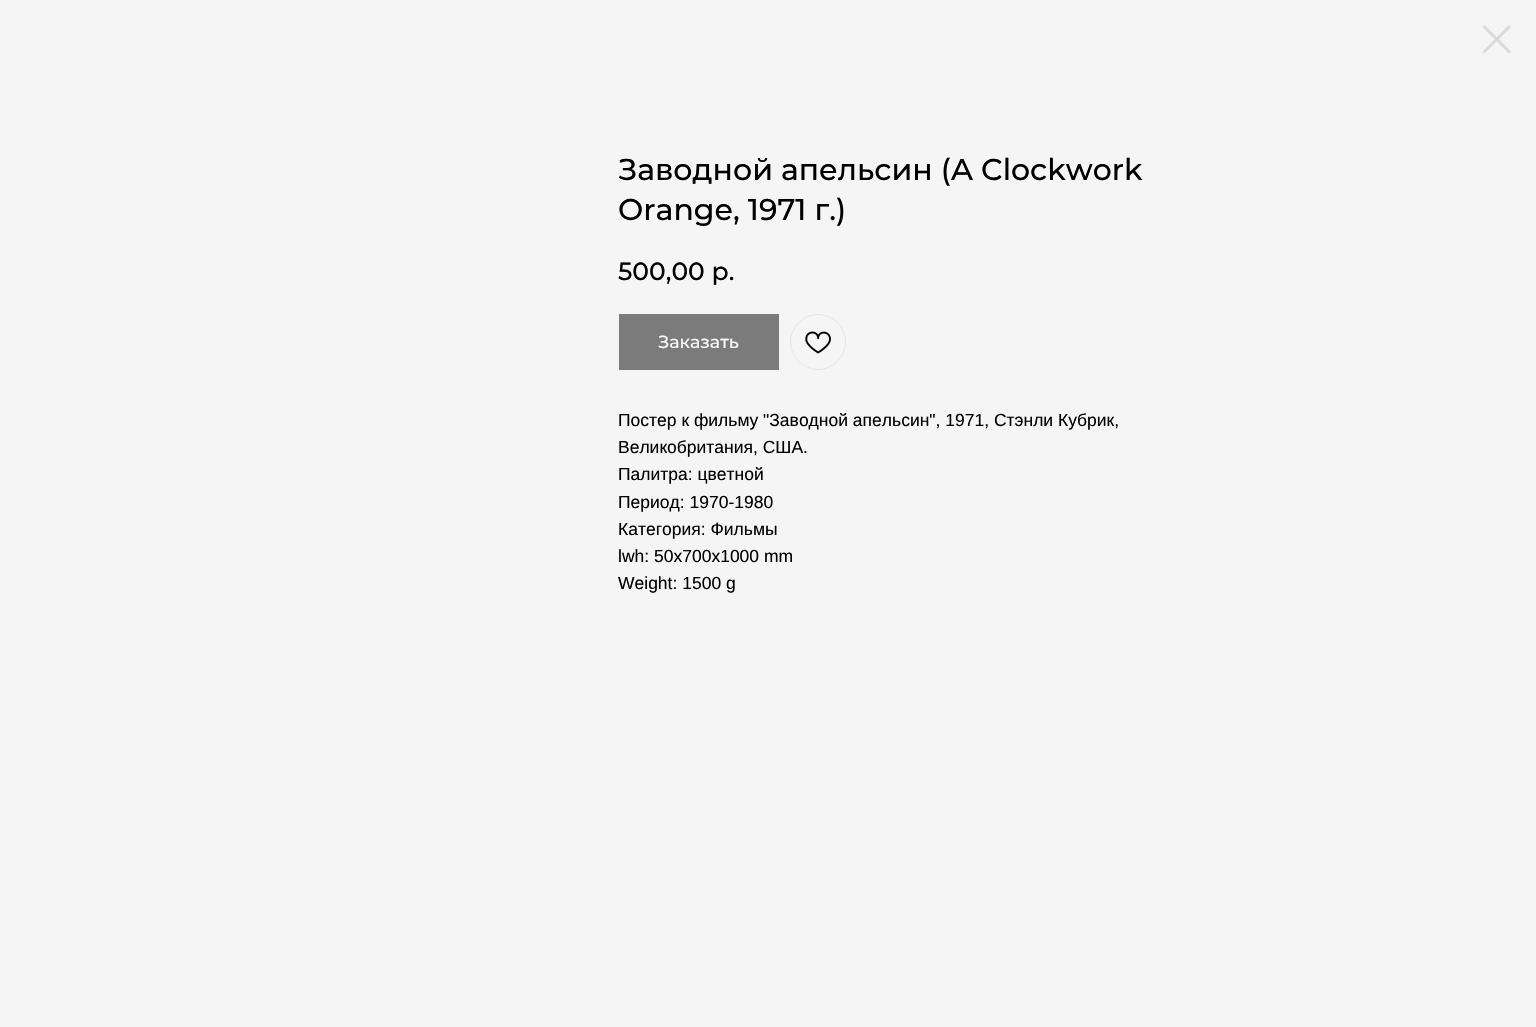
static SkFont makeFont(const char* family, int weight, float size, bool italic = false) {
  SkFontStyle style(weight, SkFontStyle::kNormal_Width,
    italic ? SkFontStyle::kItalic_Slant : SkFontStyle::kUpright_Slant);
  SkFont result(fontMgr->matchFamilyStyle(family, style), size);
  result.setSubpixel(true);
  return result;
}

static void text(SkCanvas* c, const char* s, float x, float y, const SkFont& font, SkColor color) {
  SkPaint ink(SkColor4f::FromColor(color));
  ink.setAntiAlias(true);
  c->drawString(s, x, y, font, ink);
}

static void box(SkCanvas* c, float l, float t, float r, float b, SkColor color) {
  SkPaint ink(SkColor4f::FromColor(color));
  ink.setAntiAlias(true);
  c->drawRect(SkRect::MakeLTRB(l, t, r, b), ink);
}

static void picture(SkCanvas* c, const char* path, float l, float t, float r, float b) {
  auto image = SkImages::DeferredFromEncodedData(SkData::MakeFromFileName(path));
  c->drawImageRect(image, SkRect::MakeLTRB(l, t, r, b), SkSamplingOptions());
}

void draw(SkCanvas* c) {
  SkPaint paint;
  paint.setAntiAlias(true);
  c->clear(0xfff5f5f5);
  paint.setColor(0xffd9d9d9);
  c->drawPath(SkPathBuilder(SkPathFillType::kEvenOdd).moveTo(1482.5f, 27).lineTo(1484.5f, 25).lineTo(1511, 51.5f).lineTo(1509, 53.5f).close().detach(), paint);
  c->drawPath(SkPathBuilder(SkPathFillType::kEvenOdd).moveTo(1509, 25).lineTo(1511, 27).lineTo(1484.5f, 53.5f).lineTo(1482.5f, 51.5f).close().detach(), paint);
  SkFont face1 = makeFont("Montserrat", 500, 30);
  text(c, "Заводной апельсин (A Clockwork", 618, 180, face1, 0xff000000);
  text(c, "Orange, 1971 г.)", 618, 220, face1, 0xff000000);
  SkFont face2 = makeFont("Montserrat", 500, 25);
  text(c, "500,00 р.", 618, 280, face2, 0xff000000);
  box(c, 619, 314, 779, 370, 0xff7b7b7b);
  SkFont face3 = makeFont("Montserrat", 500, 17.5f);
  text(c, "Заказать", 658, 348, face3, 0xfff9f9f9);
  paint.setStyle(SkPaint::kStroke_Style);
  paint.setStrokeWidth(1);
  paint.setColor(0xffe4e4e4);
  c->drawCircle(818, 342, 27.5f, paint);
  picture(c, "img_01.png", 805, 331, 831, 354);
  SkFont face4 = makeFont("Liberation Sans", 400, 17.5f);
  text(c, "Постер к фильму \"Заводной апельсин\", 1971, Стэнли Кубрик,", 618, 426, face4, 0xff000000);
  text(c, "Великобритания, США.", 618, 453, face4, 0xff000000);
  text(c, "Палитра: цветной", 618, 480, face4, 0xff000000);
  text(c, "Период: 1970-1980", 618, 508, face4, 0xff000000);
  text(c, "Категория: Фильмы", 618, 535, face4, 0xff000000);
  text(c, "lwh: 50x700x1000 mm", 618, 562, face4, 0xff000000);
  text(c, "Weight: 1500 g", 618, 589, face4, 0xff000000);
}
